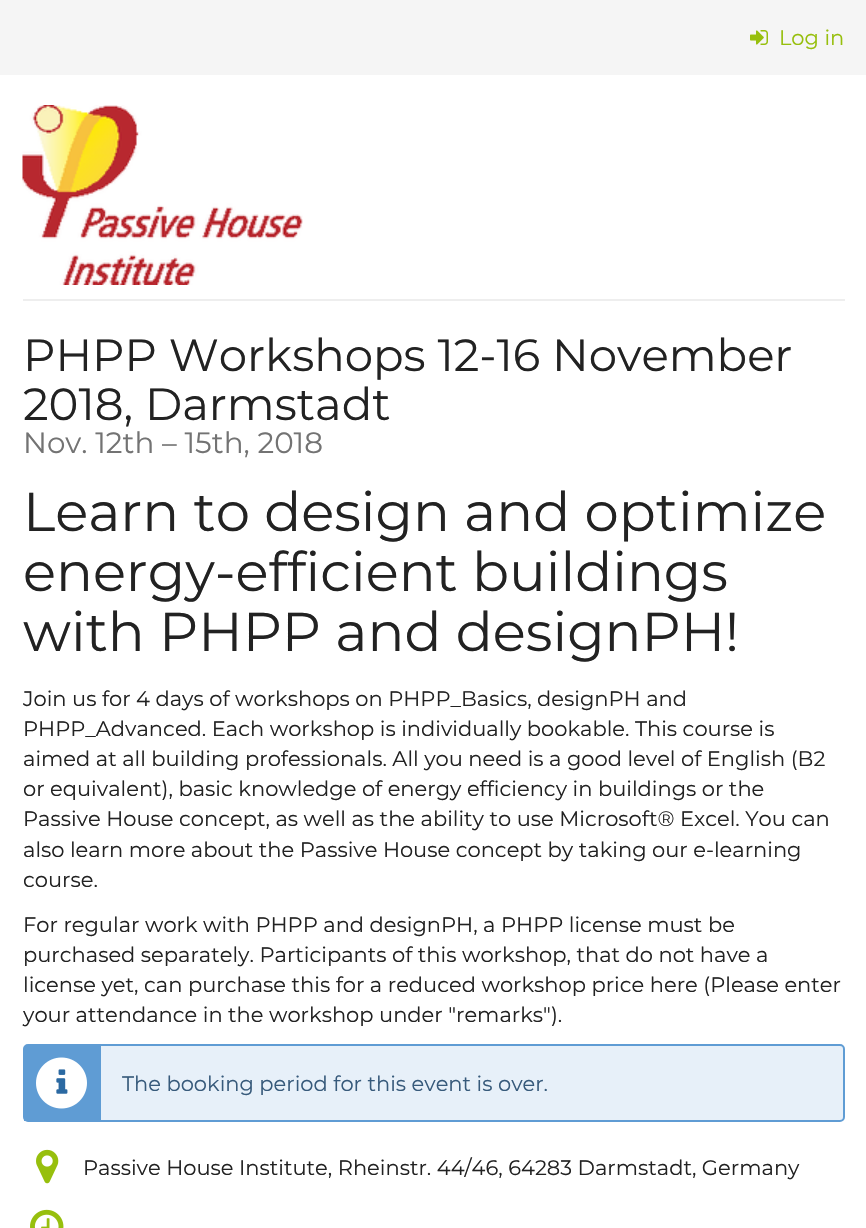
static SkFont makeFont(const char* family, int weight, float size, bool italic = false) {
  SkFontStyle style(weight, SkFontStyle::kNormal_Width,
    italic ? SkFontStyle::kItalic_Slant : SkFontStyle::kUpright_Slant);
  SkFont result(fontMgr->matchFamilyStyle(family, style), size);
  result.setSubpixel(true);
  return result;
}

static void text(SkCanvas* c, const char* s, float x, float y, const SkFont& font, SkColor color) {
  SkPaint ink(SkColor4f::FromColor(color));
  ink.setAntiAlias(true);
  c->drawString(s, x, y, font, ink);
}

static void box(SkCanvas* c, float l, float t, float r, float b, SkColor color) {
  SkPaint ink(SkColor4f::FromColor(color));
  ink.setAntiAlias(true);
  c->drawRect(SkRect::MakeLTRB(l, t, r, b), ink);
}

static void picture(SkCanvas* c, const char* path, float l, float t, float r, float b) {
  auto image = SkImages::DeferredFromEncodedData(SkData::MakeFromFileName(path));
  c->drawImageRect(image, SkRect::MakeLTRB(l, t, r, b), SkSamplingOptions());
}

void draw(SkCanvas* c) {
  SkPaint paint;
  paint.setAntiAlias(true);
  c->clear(0xfff5f5f5);
  picture(c, "img_01.png", 750, 30, 768, 45);
  SkFont face1 = makeFont("Montserrat", 400, 21);
  text(c, "Log in", 779, 45, face1, 0xff97bf0d);
  box(c, 0, 75, 866, 1228, 0xffffffff);
  box(c, 23, 299, 845, 301, 0xffeeeeee);
  picture(c, "img_02.png", 22, 105, 303, 285);
  SkFont face2 = makeFont("Montserrat", 400, 45.1f);
  text(c, "PHPP Workshops 12-16 November", 23, 371, face2, 0xff222222);
  text(c, "2018, Darmstadt", 23, 420, face2, 0xff222222);
  SkFont face3 = makeFont("Montserrat", 400, 29.4f);
  text(c, "Nov. 12th – 15th, 2018", 23, 453, face3, 0xff737373);
  SkFont face4 = makeFont("Montserrat", 400, 54.6f);
  text(c, "Learn to design and optimize", 23, 531, face4, 0xff222222);
  text(c, "energy-efficient buildings", 23, 591, face4, 0xff222222);
  text(c, "with PHPP and designPH!", 23, 651, face4, 0xff222222);
  text(c, "Join us for 4 days of workshops on PHPP_Basics, designPH and", 23, 706, face1, 0xff222222);
  text(c, "PHPP_Advanced. Each workshop is individually bookable. This course is", 23, 736, face1, 0xff222222);
  text(c, "aimed at all building professionals. All you need is a good level of English (B2", 23, 766, face1, 0xff222222);
  text(c, "or equivalent), basic knowledge of energy efficiency in buildings or the", 23, 796, face1, 0xff222222);
  text(c, "Passive House concept, as well as the ability to use Microsoft® Excel. You can", 23, 826, face1, 0xff222222);
  text(c, "also learn more about the Passive House concept by taking our e-learning", 23, 857, face1, 0xff222222);
  text(c, "course.", 23, 887, face1, 0xff222222);
  text(c, "For regular work with PHPP and designPH, a PHPP license must be", 23, 932, face1, 0xff222222);
  text(c, "purchased separately. Participants of this workshop, that do not have a", 23, 962, face1, 0xff222222);
  text(c, "license yet, can purchase this for a reduced workshop price here (Please enter", 23, 992, face1, 0xff222222);
  text(c, "your attendance in the workshop under \"remarks\").", 23, 1022, face1, 0xff222222);
  paint.setColor(0xffe7f0f9);
  c->drawRoundRect(SkRect::MakeLTRB(24, 1045, 844, 1121), 4, 4, paint);
  paint.setStyle(SkPaint::kStroke_Style);
  paint.setStrokeWidth(2);
  paint.setColor(0xff5f9cd4);
  c->drawRoundRect(SkRect::MakeLTRB(24, 1045, 844, 1121), 4, 4, paint);
  box(c, 24, 1046, 101, 1121, 0xff5f9cd4);
  picture(c, "img_03.png", 36, 1057, 87, 1109);
  text(c, "The booking period for this event is over.", 122, 1091, face1, 0xff375a7b);
  picture(c, "img_04.png", 36, 1149, 59, 1184);
  text(c, "Passive House Institute, Rheinstr. 44/46, 64283 Darmstadt, Germany", 83, 1175, face1, 0xff222222);
  picture(c, "img_05.png", 30, 1209, 64, 1228);
}
